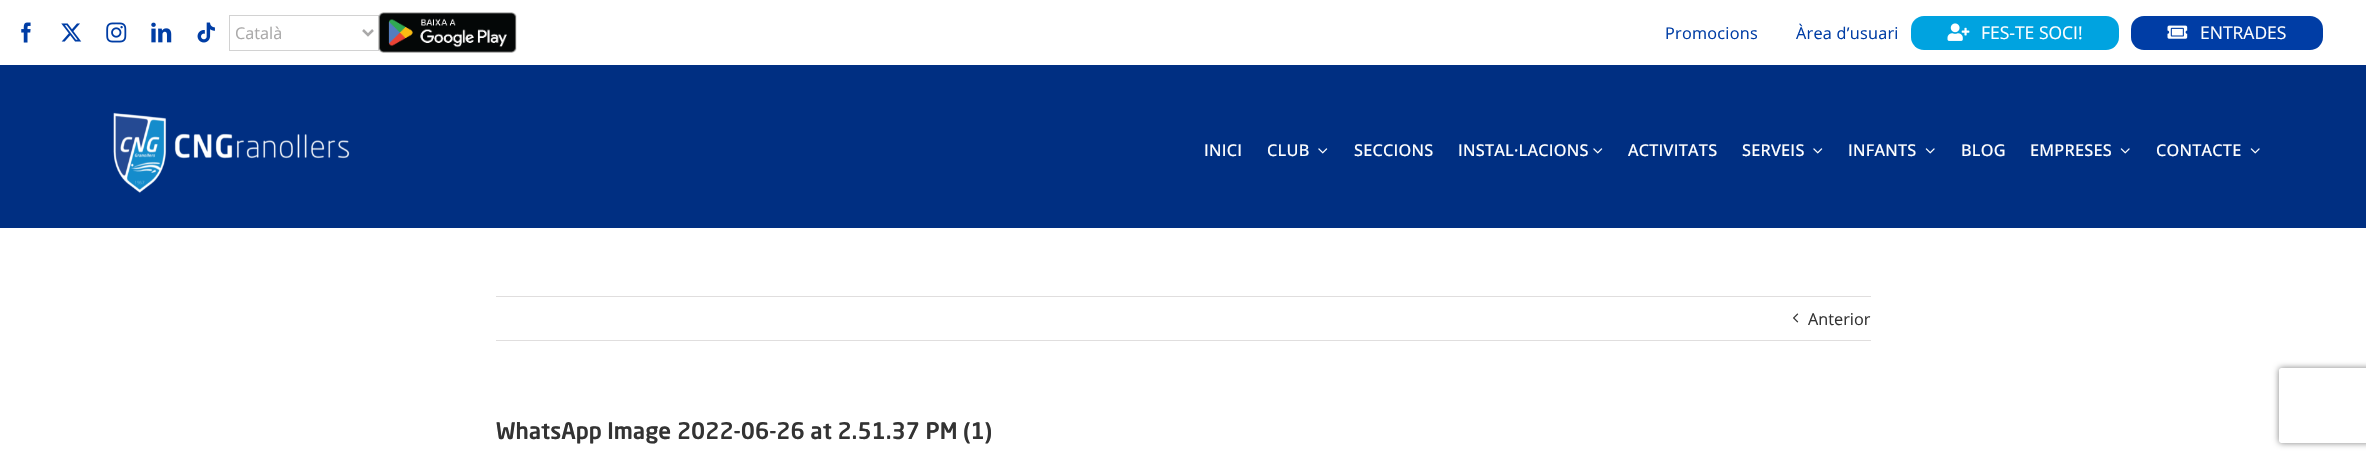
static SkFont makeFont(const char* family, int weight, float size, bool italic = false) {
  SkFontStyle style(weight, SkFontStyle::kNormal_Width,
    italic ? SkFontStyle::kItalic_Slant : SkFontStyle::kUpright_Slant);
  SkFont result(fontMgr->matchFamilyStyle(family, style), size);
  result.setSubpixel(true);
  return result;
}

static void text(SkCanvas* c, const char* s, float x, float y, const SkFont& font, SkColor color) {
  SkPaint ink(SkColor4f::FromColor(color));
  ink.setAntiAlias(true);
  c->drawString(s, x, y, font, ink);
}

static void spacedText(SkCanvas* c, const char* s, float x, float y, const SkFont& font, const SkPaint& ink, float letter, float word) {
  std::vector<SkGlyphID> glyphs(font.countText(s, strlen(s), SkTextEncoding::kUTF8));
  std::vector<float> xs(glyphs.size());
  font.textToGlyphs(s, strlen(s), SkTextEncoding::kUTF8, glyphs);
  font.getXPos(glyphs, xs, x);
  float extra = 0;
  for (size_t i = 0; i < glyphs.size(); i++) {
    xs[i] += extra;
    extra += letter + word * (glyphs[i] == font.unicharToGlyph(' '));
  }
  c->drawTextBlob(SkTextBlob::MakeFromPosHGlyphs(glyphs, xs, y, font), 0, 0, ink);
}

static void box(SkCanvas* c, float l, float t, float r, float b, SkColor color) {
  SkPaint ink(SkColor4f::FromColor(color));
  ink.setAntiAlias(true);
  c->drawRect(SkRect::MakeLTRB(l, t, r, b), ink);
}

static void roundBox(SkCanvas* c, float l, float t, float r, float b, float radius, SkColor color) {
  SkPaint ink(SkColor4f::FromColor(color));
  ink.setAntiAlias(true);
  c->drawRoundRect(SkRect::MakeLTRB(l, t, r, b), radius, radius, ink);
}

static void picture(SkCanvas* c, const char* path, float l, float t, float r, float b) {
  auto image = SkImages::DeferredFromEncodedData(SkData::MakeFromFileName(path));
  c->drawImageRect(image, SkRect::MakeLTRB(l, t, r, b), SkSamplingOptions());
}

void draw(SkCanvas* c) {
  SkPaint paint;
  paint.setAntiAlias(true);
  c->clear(0xffffffff);
  picture(c, "img_01.png", 21, 22, 31, 43);
  picture(c, "img_02.png", 61, 23, 82, 42);
  picture(c, "img_03.png", 106, 22, 127, 43);
  picture(c, "img_04.png", 151, 22, 172, 43);
  picture(c, "img_05.png", 197, 22, 215, 43);
  paint.setStyle(SkPaint::kStroke_Style);
  paint.setStrokeWidth(1);
  paint.setColor(0xffd2d2d2);
  c->drawRect(SkRect::MakeLTRB(229.5f, 15.5f, 378.5f, 50.5f), paint);
  paint.setStrokeWidth(2.5f);
  paint.setColor(0xffaaa9a9);
  c->drawPath(SkPathBuilder().moveTo(363, 30).lineTo(368, 35).lineTo(373, 30).detach(), paint);
  SkFont face1 = makeFont("Open Sans", 400, 16.25f);
  text(c, "Català", 235, 39, face1, 0xffaaa9a9);
  picture(c, "img_06.png", 378, 12, 517, 53);
  paint.setStyle(SkPaint::kFill_Style);
  paint.setColor(0xff003da5);
  spacedText(c, "Promocions", 1665, 39, face1, paint, 0.25f, 0);
  spacedText(c, "Àrea d’usuari", 1796, 39, face1, paint, 0.25f, 0);
  roundBox(c, 1911, 16, 2119, 50, 13, 0xff00a3e0);
  picture(c, "img_07.png", 1947, 23, 1970, 41);
  SkFont face2 = makeFont("Open Sans", 400, 17.5f);
  text(c, "FES-TE SOCI!", 1981, 39, face2, 0xffffffff);
  roundBox(c, 2131, 16, 2323, 50, 13, 0xff003da5);
  picture(c, "img_08.png", 2167, 25, 2188, 39);
  text(c, "ENTRADES", 2200, 39, face2, 0xffffffff);
  box(c, 0, 65, 2366, 228, 0xff002f82);
  picture(c, "img_09.png", 113, 112, 350, 193);
  SkFont face3 = makeFont("Open Sans", 500, 16.25f);
  paint.setColor(0xffffffff);
  spacedText(c, "INICI", 1204, 156, face3, paint, 0.25f, 0);
  spacedText(c, "CLUB", 1267, 156, face3, paint, 0.25f, 0);
  picture(c, "img_10.png", 1318, 148, 1328, 154);
  spacedText(c, "SECCIONS", 1354, 156, face3, paint, 0.25f, 0);
  spacedText(c, "INSTAL·LACIONS", 1458, 156, face3, paint, 0.25f, 0);
  picture(c, "img_10.png", 1593, 148, 1603, 154);
  spacedText(c, "ACTIVITATS", 1628, 156, face3, paint, 0.25f, 0);
  spacedText(c, "SERVEIS", 1742, 156, face3, paint, 0.25f, 0);
  picture(c, "img_10.png", 1813, 148, 1823, 154);
  spacedText(c, "INFANTS", 1848, 156, face3, paint, 0.25f, 0);
  picture(c, "img_11.png", 1925, 148, 1935, 154);
  spacedText(c, "BLOG", 1961, 156, face3, paint, 0.25f, 0);
  spacedText(c, "EMPRESES", 2030, 156, face3, paint, 0.25f, 0);
  picture(c, "img_11.png", 2120, 148, 2130, 154);
  spacedText(c, "CONTACTE", 2156, 156, face3, paint, 0.25f, 0);
  picture(c, "img_11.png", 2250, 148, 2260, 154);
  box(c, 496, 296, 1871, 297, 0xffe0dede);
  box(c, 496, 340, 1871, 341, 0xffe0dede);
  picture(c, "img_12.png", 1793, 313, 1799, 323);
  text(c, "Anterior", 1808, 325, face1, 0xff333333);
  SkFont face4 = makeFont("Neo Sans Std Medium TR", 500, 22.5f);
  text(c, "WhatsApp Image 2022-06-26 at 2.51.37 PM (1)", 496, 439, face4, 0xff333333);
  c->save();
  c->clipPath(SkPathBuilder(SkPathFillType::kEvenOdd).moveTo(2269, 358).lineTo(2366, 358).lineTo(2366, 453).lineTo(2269, 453).close().moveTo(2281.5f, 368).lineTo(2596.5f, 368).cubicTo(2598, 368, 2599, 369, 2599, 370.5f).lineTo(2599, 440.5f).cubicTo(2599, 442, 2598, 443, 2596.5f, 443).lineTo(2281.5f, 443).cubicTo(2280, 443, 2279, 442, 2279, 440.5f).lineTo(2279, 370.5f).cubicTo(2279, 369, 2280, 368, 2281.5f, 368).close().detach(), true);
  paint.setColor(0xff808080);
  paint.setMaskFilter(SkMaskFilter::MakeBlur(kNormal_SkBlurStyle, 3));
  c->drawRoundRect(SkRect::MakeLTRB(2279, 368, 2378, 443), 2.5f, 2.5f, paint);
  paint.setMaskFilter(nullptr);
  c->restore();
}
